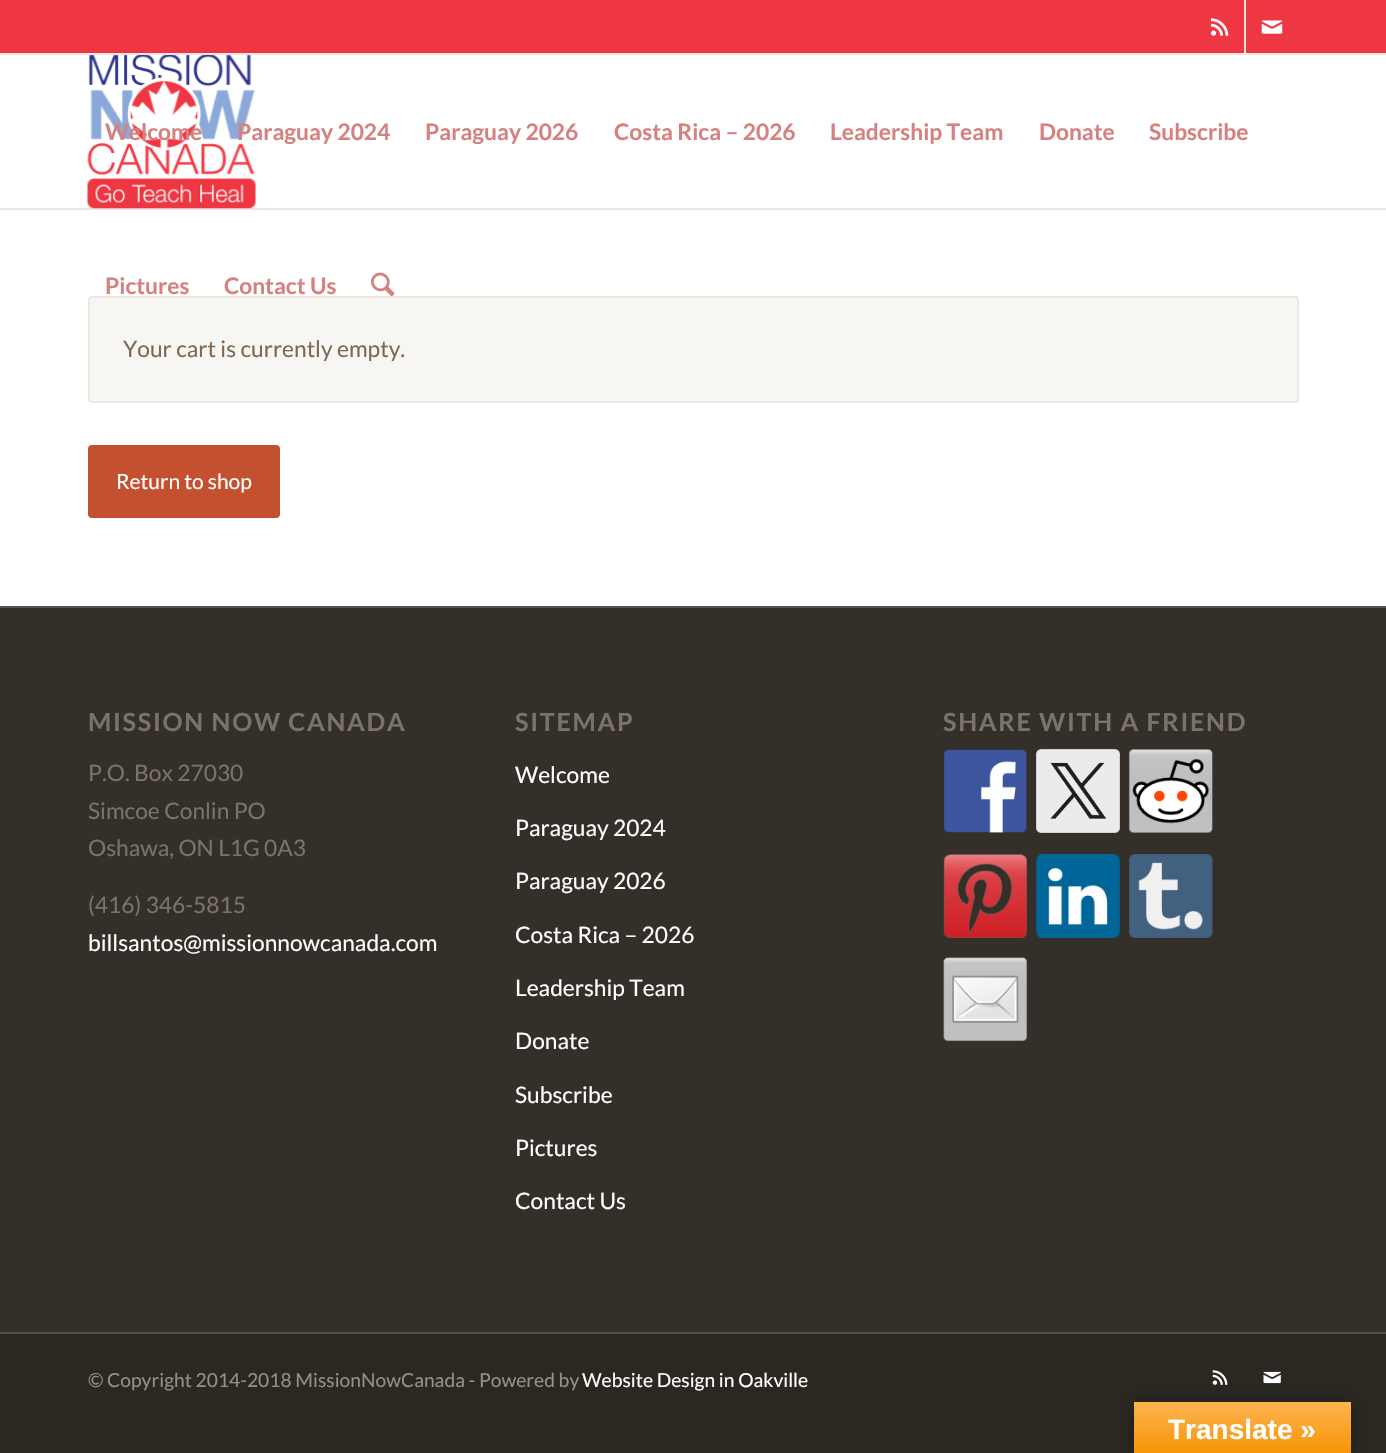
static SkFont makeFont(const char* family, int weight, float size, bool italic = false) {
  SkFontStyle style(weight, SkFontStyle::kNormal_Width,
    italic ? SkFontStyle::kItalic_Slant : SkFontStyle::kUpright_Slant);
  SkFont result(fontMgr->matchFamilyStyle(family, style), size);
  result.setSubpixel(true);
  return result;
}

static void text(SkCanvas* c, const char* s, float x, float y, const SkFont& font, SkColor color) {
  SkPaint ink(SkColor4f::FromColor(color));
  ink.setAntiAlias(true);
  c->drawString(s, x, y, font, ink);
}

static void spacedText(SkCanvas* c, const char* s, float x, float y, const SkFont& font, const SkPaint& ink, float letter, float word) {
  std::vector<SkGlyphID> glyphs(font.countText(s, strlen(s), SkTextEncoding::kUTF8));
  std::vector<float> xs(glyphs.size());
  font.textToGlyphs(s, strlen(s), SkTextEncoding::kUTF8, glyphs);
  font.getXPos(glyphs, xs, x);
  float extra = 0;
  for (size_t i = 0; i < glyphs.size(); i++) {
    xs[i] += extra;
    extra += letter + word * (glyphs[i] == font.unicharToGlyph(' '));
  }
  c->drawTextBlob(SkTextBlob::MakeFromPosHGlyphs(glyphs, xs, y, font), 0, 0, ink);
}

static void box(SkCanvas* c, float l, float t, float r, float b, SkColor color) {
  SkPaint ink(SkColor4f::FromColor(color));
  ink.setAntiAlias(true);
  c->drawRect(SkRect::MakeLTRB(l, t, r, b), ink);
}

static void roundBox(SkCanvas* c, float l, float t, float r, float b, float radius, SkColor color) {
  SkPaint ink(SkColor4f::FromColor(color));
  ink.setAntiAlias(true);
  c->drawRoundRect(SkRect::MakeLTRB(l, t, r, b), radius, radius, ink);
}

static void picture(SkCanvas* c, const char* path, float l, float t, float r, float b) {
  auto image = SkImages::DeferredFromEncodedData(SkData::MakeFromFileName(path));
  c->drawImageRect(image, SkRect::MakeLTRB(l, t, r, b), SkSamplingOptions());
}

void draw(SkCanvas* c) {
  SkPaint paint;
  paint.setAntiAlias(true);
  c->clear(0xff2b2822);
  box(c, 0, 55, 1386, 606, 0xffffffff);
  box(c, 0, 0, 1386, 53, 0xffef3744);
  box(c, 0, 53, 1386, 55, 0xffebe8e2);
  box(c, 1244, 0, 1246, 53, 0xffebe8e2);
  picture(c, "img_01.png", 1211, 18, 1229, 36);
  picture(c, "img_02.png", 1261, 20, 1283, 34);
  box(c, 0, 208, 1386, 210, 0xffebe8e2);
  picture(c, "img_03.png", 87, 55, 256, 209);
  SkFont face1 = makeFont("Lato", 700, 22.75f);
  text(c, "Welcome", 105, 140, face1, 0xffd58180);
  text(c, "Paraguay 2024", 237, 140, face1, 0xffd58180);
  text(c, "Paraguay 2026", 425, 140, face1, 0xffd58180);
  text(c, "Costa Rica – 2026", 614, 140, face1, 0xffd58180);
  text(c, "Leadership Team", 830, 140, face1, 0xffd58180);
  text(c, "Donate", 1039, 140, face1, 0xffd58180);
  text(c, "Subscribe", 1149, 140, face1, 0xffd58180);
  text(c, "Pictures", 105, 294, face1, 0xffd58180);
  text(c, "Contact Us", 224, 294, face1, 0xffd58180);
  paint.setColor(0xfff8f6f2);
  c->drawRoundRect(SkRect::MakeLTRB(89, 297, 1298, 402), 3, 3, paint);
  paint.setStyle(SkPaint::kStroke_Style);
  paint.setStrokeWidth(2);
  paint.setColor(0xffebe8e2);
  c->drawRoundRect(SkRect::MakeLTRB(89, 297, 1298, 402), 3, 3, paint);
  picture(c, "img_04.png", 371, 272, 395, 297);
  SkFont face2 = makeFont("Lato", 400, 22.75f);
  text(c, "Your cart is currently empty.", 123, 357, face2, 0xff7c6853);
  roundBox(c, 88, 445, 280, 518, 4, 0xffc3512f);
  SkFont face3 = makeFont("Lato", 400, 21);
  text(c, "Return to shop", 116, 489, face3, 0xffffffff);
  box(c, 0, 608, 1386, 1332, 0xff342f29);
  box(c, 0, 606, 1386, 608, 0xff575149);
  SkFont face4 = makeFont("Lato", 700, 25);
  paint.setStyle(SkPaint::kFill_Style);
  paint.setColor(0xff7a736b);
  spacedText(c, "MISSION NOW CANADA", 88, 731, face4, paint, 1.75f, 0);
  text(c, "P.O. Box 27030", 88, 781, face2, 0xff7a736b);
  text(c, "Simcoe Conlin PO", 88, 819, face2, 0xff7a736b);
  text(c, "Oshawa, ON L1G 0A3", 88, 856, face2, 0xff7a736b);
  text(c, "(416) 346-5815", 88, 913, face2, 0xff7a736b);
  text(c, "billsantos@missionnowcanada.com", 88, 951, face2, 0xffffffff);
  spacedText(c, "SITEMAP", 515, 731, face4, paint, 1.75f, 0);
  text(c, "Welcome", 515, 783, face2, 0xffffffff);
  text(c, "Paraguay 2024", 515, 836, face2, 0xffffffff);
  text(c, "Paraguay 2026", 515, 889, face2, 0xffffffff);
  text(c, "Costa Rica – 2026", 515, 943, face2, 0xffffffff);
  text(c, "Leadership Team", 515, 996, face2, 0xffffffff);
  text(c, "Donate", 515, 1049, face2, 0xffffffff);
  text(c, "Subscribe", 515, 1103, face2, 0xffffffff);
  text(c, "Pictures", 515, 1156, face2, 0xffffffff);
  text(c, "Contact Us", 515, 1209, face2, 0xffffffff);
  spacedText(c, "SHARE WITH A FRIEND", 943, 731, face4, paint, 1.75f, 0);
  picture(c, "img_05.png", 943, 749, 1027, 833);
  picture(c, "img_06.png", 1036, 749, 1120, 833);
  picture(c, "img_07.png", 1128, 749, 1213, 833);
  picture(c, "img_08.png", 943, 854, 1027, 938);
  picture(c, "img_09.png", 1036, 854, 1120, 938);
  picture(c, "img_10.png", 1129, 854, 1213, 938);
  picture(c, "img_11.png", 943, 957, 1028, 1042);
  box(c, 0, 1332, 1386, 1334, 0xff575149);
  SkFont face5 = makeFont("Lato", 400, 19.25f);
  text(c, "© Copyright 2014-2018 MissionNowCanada - Powered by", 88, 1387, face5, 0xff988f81);
  text(c, "Website Design in Oakville", 582, 1387, face5, 0xffffffff);
  picture(c, "img_12.png", 1212, 1370, 1228, 1385);
  picture(c, "img_13.png", 1263, 1371, 1281, 1384);
  paint.setColor(0x4d000000);
  paint.setMaskFilter(SkMaskFilter::MakeBlur(kNormal_SkBlurStyle, 8));
  c->drawRect(SkRect::MakeLTRB(1134, 1402, 1351, 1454), paint);
  paint.setMaskFilter(nullptr);
  {
    const SkColor colors[] = {0xfffbb450, 0xfff89406};
    const float stops[] = {0, 1};
    const SkPoint ends[] = {{1243, 1402}, {1243, 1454}};
    paint.setShader(SkGradientShader::MakeLinear(ends, colors, stops, 2, SkTileMode::kClamp));
    paint.setAlpha(255);
  }
  c->drawRect(SkRect::MakeLTRB(1134, 1402, 1351, 1453), paint);
  SkFont face6 = makeFont("Liberation Sans", 700, 28);
  text(c, "Translate »", 1168, 1439, face6, 0xffffffff);
}
